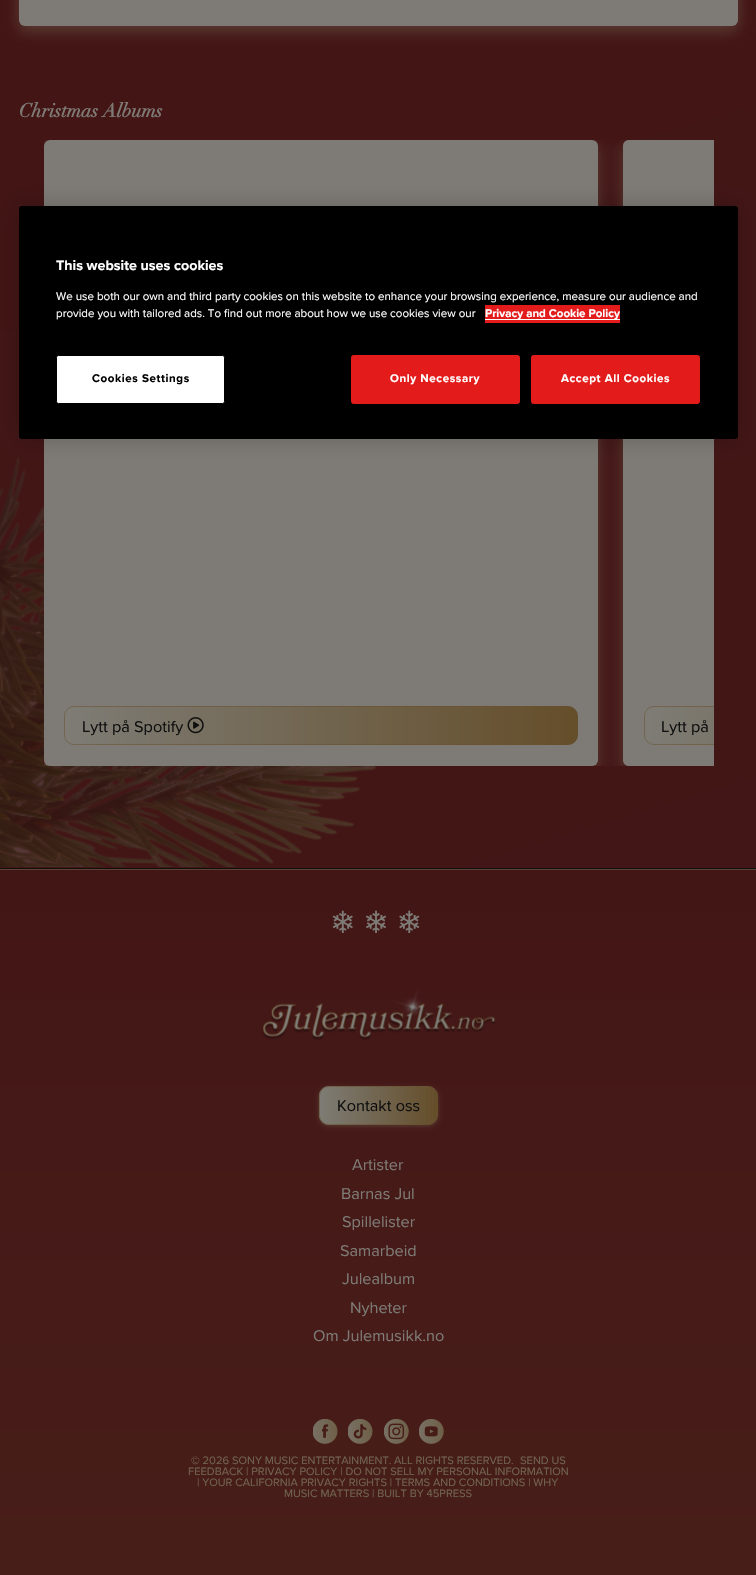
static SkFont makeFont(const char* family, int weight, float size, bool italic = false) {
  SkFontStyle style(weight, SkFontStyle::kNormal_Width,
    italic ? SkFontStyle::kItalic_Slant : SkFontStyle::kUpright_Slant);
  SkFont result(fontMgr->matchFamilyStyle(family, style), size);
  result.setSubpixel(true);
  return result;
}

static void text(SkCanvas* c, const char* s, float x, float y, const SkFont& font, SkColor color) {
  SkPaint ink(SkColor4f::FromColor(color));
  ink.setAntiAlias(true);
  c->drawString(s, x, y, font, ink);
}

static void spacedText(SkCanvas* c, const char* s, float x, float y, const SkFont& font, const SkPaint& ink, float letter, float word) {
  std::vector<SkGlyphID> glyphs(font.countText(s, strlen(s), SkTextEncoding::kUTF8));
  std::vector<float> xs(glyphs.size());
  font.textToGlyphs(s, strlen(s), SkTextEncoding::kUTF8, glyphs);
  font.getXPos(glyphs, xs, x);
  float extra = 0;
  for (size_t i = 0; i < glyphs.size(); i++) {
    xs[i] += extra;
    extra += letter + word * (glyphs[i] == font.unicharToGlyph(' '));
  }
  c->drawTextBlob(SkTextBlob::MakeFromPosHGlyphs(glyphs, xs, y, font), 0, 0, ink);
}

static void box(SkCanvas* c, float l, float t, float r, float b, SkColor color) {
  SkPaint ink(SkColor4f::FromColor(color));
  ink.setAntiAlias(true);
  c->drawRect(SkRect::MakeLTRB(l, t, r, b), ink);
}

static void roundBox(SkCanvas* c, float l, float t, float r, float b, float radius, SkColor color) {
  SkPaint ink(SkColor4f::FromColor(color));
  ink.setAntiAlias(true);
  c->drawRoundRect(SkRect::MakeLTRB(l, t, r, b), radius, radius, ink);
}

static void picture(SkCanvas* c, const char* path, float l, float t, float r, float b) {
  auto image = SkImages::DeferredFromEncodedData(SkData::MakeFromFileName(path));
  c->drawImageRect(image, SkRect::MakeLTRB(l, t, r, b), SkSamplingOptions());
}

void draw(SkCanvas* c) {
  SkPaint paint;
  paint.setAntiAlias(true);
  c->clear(0xff0f0f0f);
  {
    const SkColor colors[] = {0xff431515, 0xff411919};
    const float stops[] = {0.03f, 1};
    const SkPoint ends[] = {{154, -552}, {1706, 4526}};
    paint.setShader(SkGradientShader::MakeLinear(ends, colors, stops, 2, SkTileMode::kClamp));
    paint.setAlpha(255);
  }
  c->drawRect(SkRect::MakeLTRB(0, 0, 756, 868), paint);
  paint.setShader(nullptr);
  paint.setColor(0x82716451);
  paint.setMaskFilter(SkMaskFilter::MakeBlur(kNormal_SkBlurStyle, 7.5f));
  c->drawRoundRect(SkRect::MakeLTRB(19, -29, 738, 31), 6, 6, paint);
  paint.setMaskFilter(nullptr);
  roundBox(c, 19, -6, 738, 26, 6, 0xff7e7a75);
  SkFont face1 = makeFont("Didot", 700, 19, true);
  text(c, "Christmas Albums", 19, 117, face1, 0xff7e7a75);
  picture(c, "img_02.png", 0, 457, 377, 867);
  c->save();
  c->clipRect(SkRect::MakeLTRB(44, 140, 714, 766));
  paint.setMaskFilter(SkMaskFilter::MakeBlur(kNormal_SkBlurStyle, 7.5f));
  c->drawRoundRect(SkRect::MakeLTRB(44, 145, 598, 771), 6, 6, paint);
  paint.setMaskFilter(nullptr);
  c->restore();
  roundBox(c, 44, 140, 598, 766, 6, 0xff7e7a75);
  c->save();
  c->clipPath(SkPathBuilder().moveTo(74, 706).lineTo(568, 706).cubicTo(573.5f, 706, 578, 710.5f, 578, 716).lineTo(578, 735).cubicTo(578, 740.5f, 573.5f, 745, 568, 745).lineTo(74, 745).cubicTo(68.5f, 745, 64, 740.5f, 64, 735).lineTo(64, 716).cubicTo(64, 710.5f, 68.5f, 706, 74, 706).close().detach(), true);
  {
    const SkColor colors[] = {0xff7e7c75, 0xff654e2a, 0xff7e7c75};
    const float stops[] = {0, 0.5f, 1};
    const SkPoint ends[] = {{65, 726}, {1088, 726}};
    paint.setShader(SkGradientShader::MakeLinear(ends, colors, stops, 3, SkTileMode::kClamp));
    paint.setAlpha(255);
  }
  c->drawPath(SkPathBuilder().moveTo(65, 706).lineTo(568, 706).cubicTo(573.5f, 706, 578, 710.5f, 578, 716).lineTo(578, 735).cubicTo(578, 740.5f, 573.5f, 745, 568, 745).lineTo(65, 745).close().detach(), paint);
  c->restore();
  paint.setStyle(SkPaint::kStroke_Style);
  paint.setStrokeWidth(1);
  paint.setShader(nullptr);
  paint.setColor(0x80654e2a);
  c->drawRoundRect(SkRect::MakeLTRB(64.5f, 706.5f, 577.5f, 744.5f), 9.5f, 9.5f, paint);
  SkFont face2 = makeFont("Proxima Nova", 400, 16.25f);
  text(c, "Lytt på Spotify", 82, 732, face2, 0xff0f0f0f);
  picture(c, "img_01.png", 187, 717, 204, 734);
  c->save();
  c->clipRect(SkRect::MakeLTRB(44, 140, 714, 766));
  paint.setStyle(SkPaint::kFill_Style);
  paint.setColor(0x82716451);
  paint.setMaskFilter(SkMaskFilter::MakeBlur(kNormal_SkBlurStyle, 7.5f));
  c->drawRoundRect(SkRect::MakeLTRB(623, 145, 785, 771), 6, 6, paint);
  paint.setMaskFilter(nullptr);
  c->restore();
  paint.setColor(0xff7e7a75);
  c->drawPath(SkPathBuilder().moveTo(629, 140).lineTo(714, 140).lineTo(714, 766).lineTo(629, 766).cubicTo(625.5f, 766, 623, 763.5f, 623, 760).lineTo(623, 146).cubicTo(623, 142.5f, 625.5f, 140, 629, 140).close().detach(), paint);
  c->save();
  c->clipPath(SkPathBuilder().moveTo(654, 706).lineTo(1148, 706).cubicTo(1153.5f, 706, 1158, 710.5f, 1158, 716).lineTo(1158, 735).cubicTo(1158, 740.5f, 1153.5f, 745, 1148, 745).lineTo(654, 745).cubicTo(648.5f, 745, 644, 740.5f, 644, 735).lineTo(644, 716).cubicTo(644, 710.5f, 648.5f, 706, 654, 706).close().detach(), true);
  {
    const SkColor colors[] = {0xff7e7c75, 0xff654e2a, 0xff7e7c75};
    const float stops[] = {0, 0.5f, 1};
    const SkPoint ends[] = {{645, 726}, {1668, 726}};
    paint.setShader(SkGradientShader::MakeLinear(ends, colors, stops, 3, SkTileMode::kClamp));
    paint.setAlpha(255);
  }
  c->drawRect(SkRect::MakeLTRB(645, 706, 714, 745), paint);
  c->restore();
  c->save();
  c->clipRect(SkRect::MakeLTRB(44, 140, 714, 766));
  paint.setStyle(SkPaint::kStroke_Style);
  paint.setShader(nullptr);
  paint.setColor(0x80654e2a);
  c->drawRoundRect(SkRect::MakeLTRB(644.5f, 706.5f, 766.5f, 744.5f), 9.5f, 9.5f, paint);
  c->restore();
  text(c, "Lytt på", 661, 732, face2, 0xff0f0f0f);
  paint.setStyle(SkPaint::kFill_Style);
  paint.setColor(0x33000000);
  paint.setMaskFilter(SkMaskFilter::MakeBlur(kNormal_SkBlurStyle, 11));
  c->drawRoundRect(SkRect::MakeLTRB(19, 206, 738, 439), 3, 3, paint);
  paint.setMaskFilter(nullptr);
  roundBox(c, 19, 206, 738, 439, 3, 0xff000000);
  SkFont face3 = makeFont("Proxima Nova", 700, 14.25f);
  text(c, "This website uses cookies", 56, 270, face3, 0xffffffff);
  SkFont face4 = makeFont("Proxima Nova", 400, 11.55f);
  text(c, "We use both our own and third party cookies on this website to enhance your browsing experience, measure our audience and", 56, 300, face4, 0xffffffff);
  text(c, "provide you with tailored ads. To find out more about how we use cookies view our", 56, 317, face4, 0xffffffff);
  box(c, 485, 305, 620, 323, 0xffe41b1b);
  box(c, 485, 319, 620, 320, 0xffffffff);
  SkFont face5 = makeFont("Proxima Nova", 700, 11.55f);
  text(c, "Privacy and Cookie Policy", 485, 317, face5, 0xffffffff);
  paint.setColor(0xffffffff);
  c->drawRoundRect(SkRect::MakeLTRB(56.5f, 355.5f, 224.5f, 403.5f), 2, 2, paint);
  paint.setStyle(SkPaint::kStroke_Style);
  paint.setColor(0xff000000);
  c->drawRoundRect(SkRect::MakeLTRB(56.5f, 355.5f, 224.5f, 403.5f), 2, 2, paint);
  paint.setStyle(SkPaint::kFill_Style);
  spacedText(c, "Cookies Settings", 92, 382, face5, paint, 0.6f, 0);
  paint.setColor(0xffe41b1b);
  c->drawRoundRect(SkRect::MakeLTRB(351.5f, 355.5f, 519.5f, 403.5f), 2, 2, paint);
  paint.setStyle(SkPaint::kStroke_Style);
  c->drawRoundRect(SkRect::MakeLTRB(351.5f, 355.5f, 519.5f, 403.5f), 2, 2, paint);
  paint.setStyle(SkPaint::kFill_Style);
  paint.setColor(0xffffffff);
  spacedText(c, "Only Necessary", 390, 382, face5, paint, 0.6f, 0);
  paint.setColor(0xffe41b1b);
  c->drawRoundRect(SkRect::MakeLTRB(531.5f, 355.5f, 699.5f, 403.5f), 2, 2, paint);
  paint.setStyle(SkPaint::kStroke_Style);
  c->drawRoundRect(SkRect::MakeLTRB(531.5f, 355.5f, 699.5f, 403.5f), 2, 2, paint);
  paint.setStyle(SkPaint::kFill_Style);
  paint.setColor(0xffffffff);
  spacedText(c, "Accept All Cookies", 561, 382, face5, paint, 0.6f, 0);
  {
    const SkColor colors[] = {0xff431616, 0xff654e2a};
    const float stops[] = {0, 1};
    const SkPoint ends[] = {{378, 870}, {378, 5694}};
    paint.setShader(SkGradientShader::MakeLinear(ends, colors, stops, 2, SkTileMode::kClamp));
    paint.setAlpha(255);
  }
  c->drawRect(SkRect::MakeLTRB(0, 870, 756, 1575), paint);
  box(c, 0, 869, 756, 870, 0xff5d4235);
  SkFont face6 = makeFont("DejaVu Sans", 400, 30.5f);
  paint.setShader(nullptr);
  paint.setColor(0xff7e7a75);
  spacedText(c, "❄ ❄ ❄", 330, 933, face6, paint, 0, -2);
  picture(c, "img_03.png", 262, 989, 496, 1041);
  paint.setColor(0x637b7761);
  paint.setMaskFilter(SkMaskFilter::MakeBlur(kNormal_SkBlurStyle, 2.5f));
  c->drawRoundRect(SkRect::MakeLTRB(319, 1088, 438, 1126), 10, 10, paint);
  paint.setMaskFilter(nullptr);
  c->save();
  c->clipPath(SkPathBuilder().moveTo(329, 1086).lineTo(428, 1086).cubicTo(433.5f, 1086, 438, 1090.5f, 438, 1096).lineTo(438, 1115).cubicTo(438, 1120.5f, 433.5f, 1125, 428, 1125).lineTo(329, 1125).cubicTo(323.5f, 1125, 319, 1120.5f, 319, 1115).lineTo(319, 1096).cubicTo(319, 1090.5f, 323.5f, 1086, 329, 1086).close().detach(), true);
  {
    const SkColor colors[] = {0xff7e7c75, 0xff654e2a, 0xff7e7c75};
    const float stops[] = {0, 0.5f, 1};
    const SkPoint ends[] = {{88, 1106}, {320, 1106}};
    paint.setShader(SkGradientShader::MakeLinear(ends, colors, stops, 3, SkTileMode::kClamp));
    paint.setAlpha(255);
  }
  c->drawRect(SkRect::MakeLTRB(319, 1086, 320, 1125), paint);
  {
    const SkColor colors[] = {0xff7e7c75, 0xff654e2a, 0xff7e7c75};
    const float stops[] = {0, 0.5f, 1};
    const SkPoint ends[] = {{320, 1106}, {553, 1106}};
    paint.setShader(SkGradientShader::MakeLinear(ends, colors, stops, 3, SkTileMode::kClamp));
    paint.setAlpha(255);
  }
  c->drawPath(SkPathBuilder().moveTo(320, 1086).lineTo(428, 1086).cubicTo(433.5f, 1086, 438, 1090.5f, 438, 1096).lineTo(438, 1115).cubicTo(438, 1120.5f, 433.5f, 1125, 428, 1125).lineTo(320, 1125).close().detach(), paint);
  c->restore();
  paint.setStyle(SkPaint::kStroke_Style);
  paint.setShader(nullptr);
  paint.setColor(0x80654e2a);
  c->drawRoundRect(SkRect::MakeLTRB(319.5f, 1086.5f, 437.5f, 1124.5f), 9.5f, 9.5f, paint);
  text(c, "Kontakt oss", 337, 1111, face2, 0xff0f0f0f);
  text(c, "Artister", 352, 1170, face2, 0xff7e7a75);
  text(c, "Barnas Jul", 341, 1199, face2, 0xff7e7a75);
  text(c, "Spillelister", 342, 1227, face2, 0xff7e7a75);
  text(c, "Samarbeid", 340, 1256, face2, 0xff7e7a75);
  text(c, "Julealbum", 342, 1284, face2, 0xff7e7a75);
  text(c, "Nyheter", 350, 1313, face2, 0xff7e7a75);
  text(c, "Om Julemusikk.no", 313, 1341, face2, 0xff7e7a75);
  picture(c, "img_04.png", 313, 1419, 338, 1444);
  picture(c, "img_05.png", 348, 1419, 373, 1444);
  picture(c, "img_06.png", 384, 1419, 409, 1444);
  picture(c, "img_07.png", 419, 1419, 444, 1444);
  SkFont face7 = makeFont("Proxima Nova", 400, 11.15f);
  text(c, "© 2026 SONY MUSIC ENTERTAINMENT.", 191, 1464, face7, 0xff716450);
  text(c, "ALL RIGHTS RESERVED.", 394, 1464, face7, 0xff716450);
  text(c, "SEND US", 520, 1464, face7, 0xff716450);
  text(c, "FEEDBACK | PRIVACY POLICY | DO NOT SELL MY PERSONAL INFORMATION", 188, 1475, face7, 0xff716450);
  text(c, "| YOUR CALIFORNIA PRIVACY RIGHTS | TERMS AND CONDITIONS | WHY", 197, 1486, face7, 0xff716450);
  text(c, "MUSIC MATTERS | BUILT BY 45PRESS", 284, 1497, face7, 0xff716450);
}
